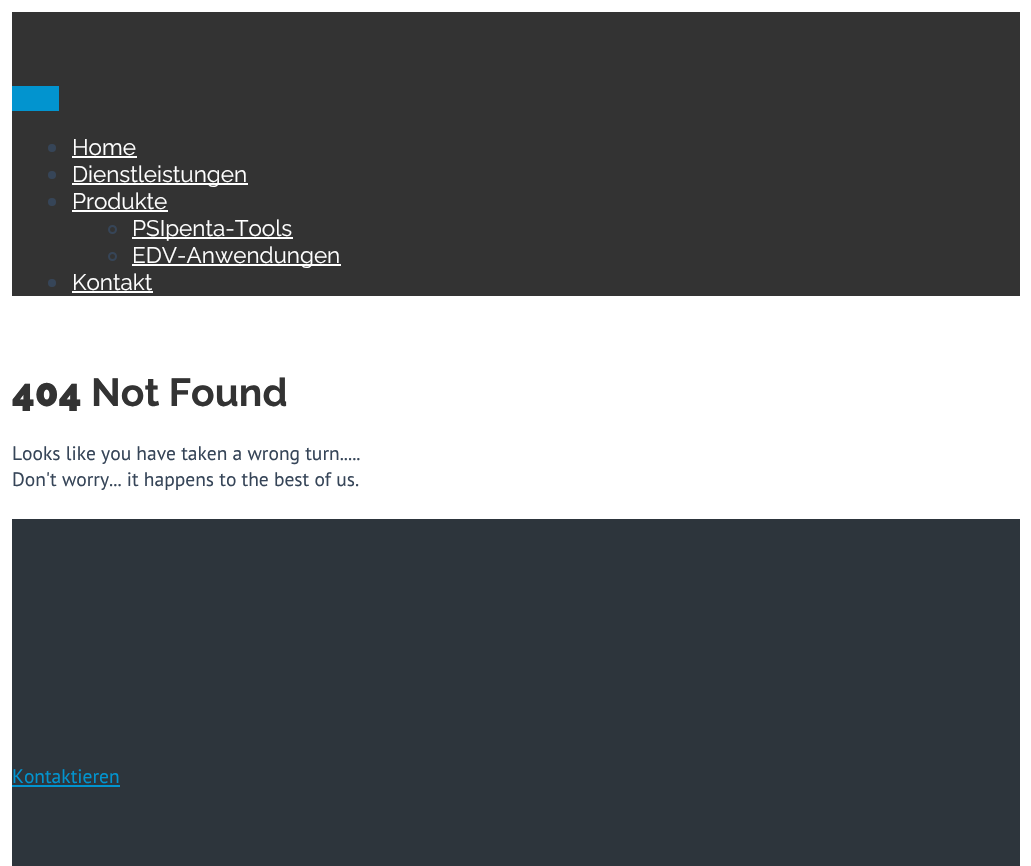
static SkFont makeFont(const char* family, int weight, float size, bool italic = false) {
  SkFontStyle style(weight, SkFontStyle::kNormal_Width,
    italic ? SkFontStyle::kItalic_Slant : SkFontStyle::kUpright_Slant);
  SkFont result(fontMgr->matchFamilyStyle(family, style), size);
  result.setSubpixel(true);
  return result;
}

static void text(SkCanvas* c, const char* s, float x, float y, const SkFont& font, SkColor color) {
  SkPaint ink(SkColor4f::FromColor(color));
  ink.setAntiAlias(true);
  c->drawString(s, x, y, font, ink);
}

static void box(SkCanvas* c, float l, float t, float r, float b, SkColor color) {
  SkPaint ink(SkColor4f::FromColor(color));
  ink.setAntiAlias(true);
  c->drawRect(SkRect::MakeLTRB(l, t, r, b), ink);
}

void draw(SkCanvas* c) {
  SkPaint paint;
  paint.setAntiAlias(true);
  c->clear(0xffffffff);
  box(c, 12, 12, 1020, 296, 0xff333333);
  box(c, 12, 86, 59, 111, 0xff0294cf);
  paint.setColor(0xff364558);
  c->drawCircle(52, 148, 4, paint);
  SkFont face1 = makeFont("Raleway", 100, 22.5f);
  text(c, "Home", 72, 155, face1, 0xffffffff);
  box(c, 72, 156, 137, 158, 0xffffffff);
  c->drawCircle(52, 175, 4, paint);
  box(c, 72, 183, 248, 185, 0xffffffff);
  text(c, "Dienstleistungen", 72, 182, face1, 0xffffffff);
  c->drawCircle(52, 202, 4, paint);
  text(c, "Produkte", 72, 209, face1, 0xffffffff);
  box(c, 72, 210, 168, 212, 0xffffffff);
  paint.setStyle(SkPaint::kStroke_Style);
  paint.setStrokeWidth(2);
  c->drawCircle(112.5f, 229.5f, 3.5f, paint);
  box(c, 132, 237, 293, 239, 0xffffffff);
  text(c, "PSIpenta-Tools", 132, 236, face1, 0xffffffff);
  c->drawCircle(112.5f, 256.5f, 3.5f, paint);
  box(c, 132, 264, 341, 266, 0xffffffff);
  text(c, "EDV-Anwendungen", 132, 263, face1, 0xffffffff);
  paint.setStyle(SkPaint::kFill_Style);
  c->drawCircle(52, 283, 4, paint);
  text(c, "Kontakt", 72, 290, face1, 0xffffffff);
  box(c, 72, 291, 153, 293, 0xffffffff);
  SkFont face2 = makeFont("Raleway", 900, 39);
  text(c, "404", 12, 406, face2, 0xff333333);
  SkFont face3 = makeFont("Raleway", 700, 39);
  text(c, "Not Found", 91, 406, face3, 0xff333333);
  SkFont face4 = makeFont("PT Sans", 400, 19.5f);
  text(c, "Looks like you have taken a wrong turn.....", 12, 460, face4, 0xff364558);
  text(c, "Don't worry... it happens to the best of us.", 12, 486, face4, 0xff364558);
  box(c, 12, 519, 1020, 866, 0xff2d353c);
  text(c, "Kontaktieren", 12, 783, face4, 0xff0294cf);
  box(c, 12, 785, 120, 787, 0xff0294cf);
}
